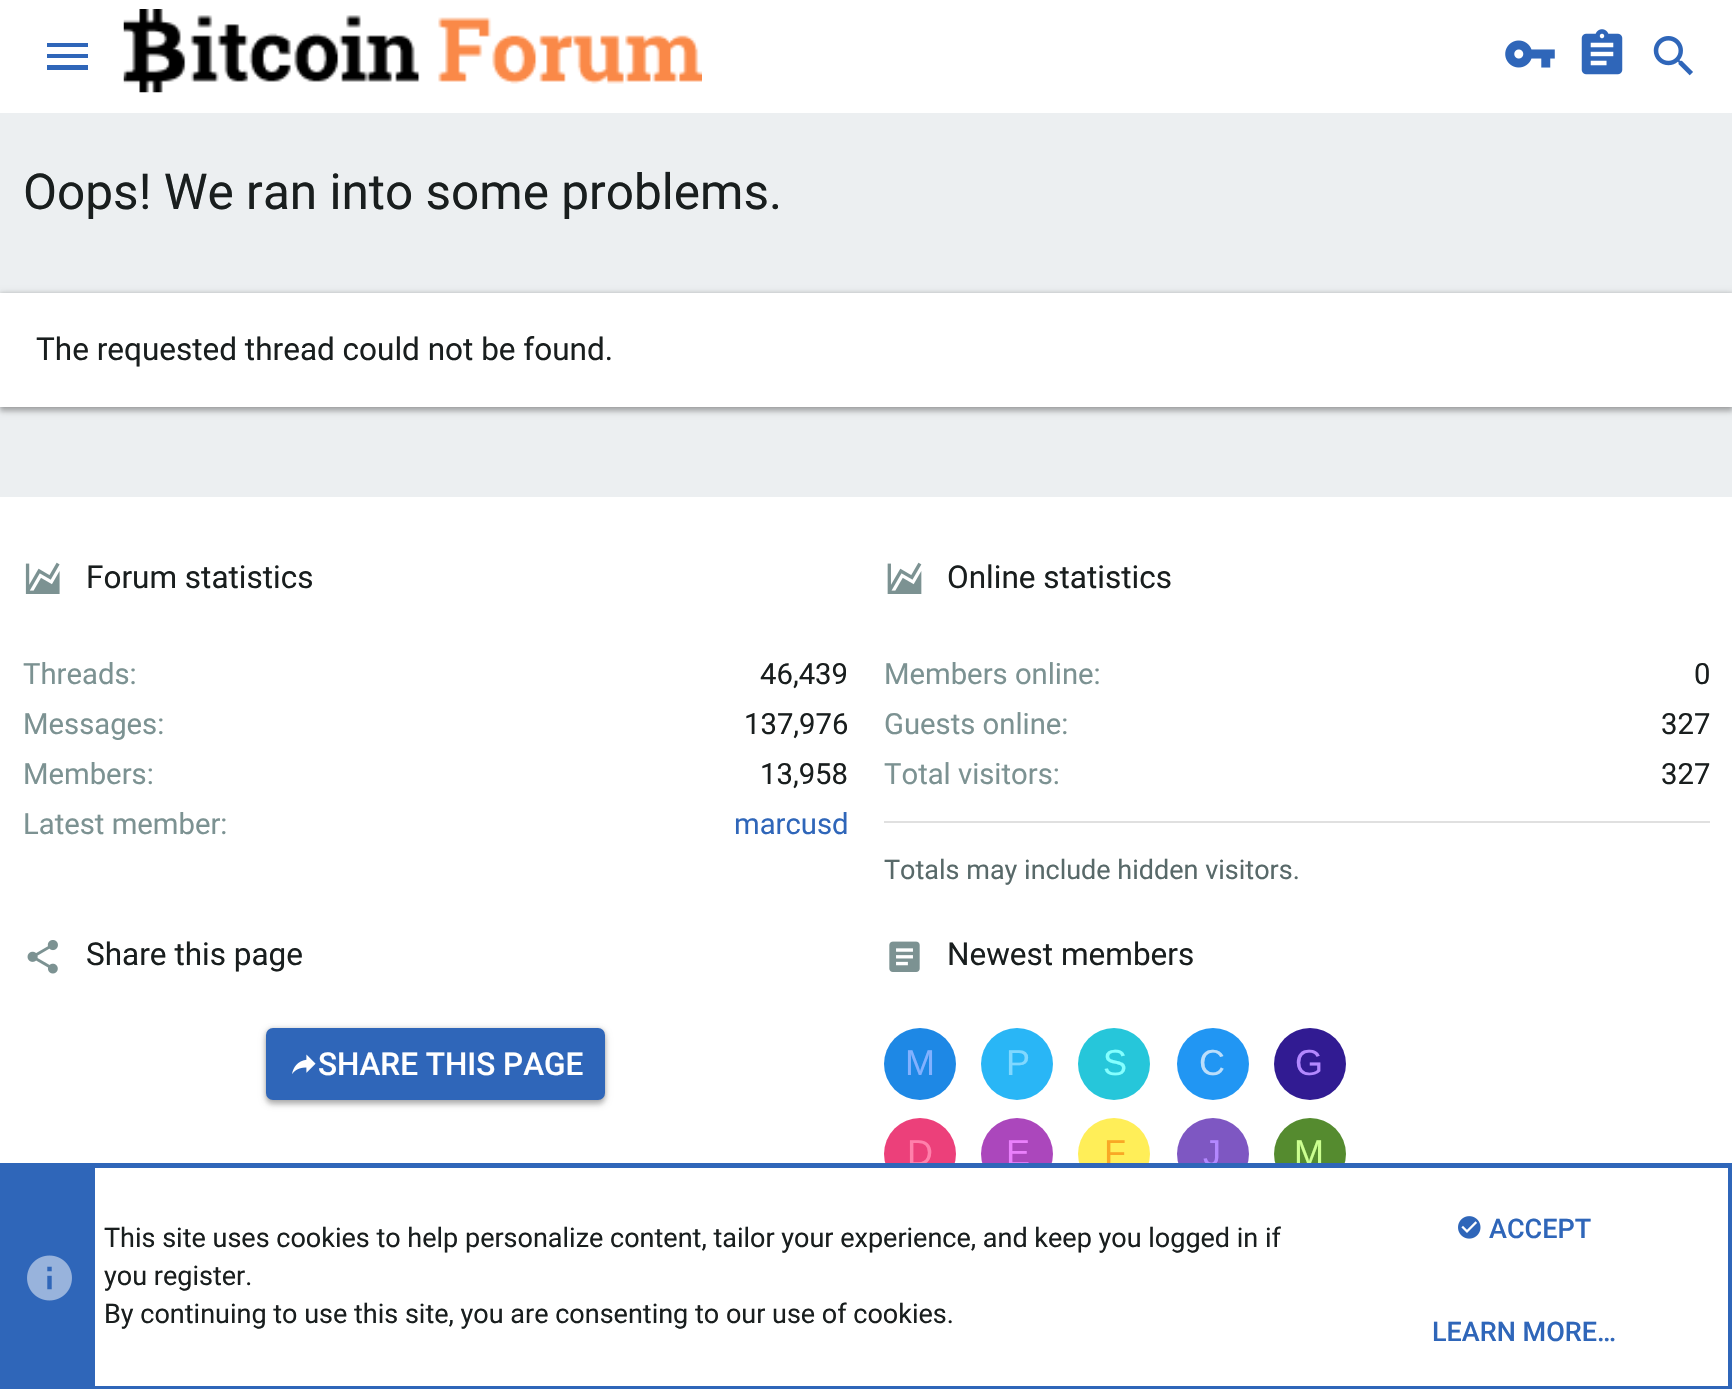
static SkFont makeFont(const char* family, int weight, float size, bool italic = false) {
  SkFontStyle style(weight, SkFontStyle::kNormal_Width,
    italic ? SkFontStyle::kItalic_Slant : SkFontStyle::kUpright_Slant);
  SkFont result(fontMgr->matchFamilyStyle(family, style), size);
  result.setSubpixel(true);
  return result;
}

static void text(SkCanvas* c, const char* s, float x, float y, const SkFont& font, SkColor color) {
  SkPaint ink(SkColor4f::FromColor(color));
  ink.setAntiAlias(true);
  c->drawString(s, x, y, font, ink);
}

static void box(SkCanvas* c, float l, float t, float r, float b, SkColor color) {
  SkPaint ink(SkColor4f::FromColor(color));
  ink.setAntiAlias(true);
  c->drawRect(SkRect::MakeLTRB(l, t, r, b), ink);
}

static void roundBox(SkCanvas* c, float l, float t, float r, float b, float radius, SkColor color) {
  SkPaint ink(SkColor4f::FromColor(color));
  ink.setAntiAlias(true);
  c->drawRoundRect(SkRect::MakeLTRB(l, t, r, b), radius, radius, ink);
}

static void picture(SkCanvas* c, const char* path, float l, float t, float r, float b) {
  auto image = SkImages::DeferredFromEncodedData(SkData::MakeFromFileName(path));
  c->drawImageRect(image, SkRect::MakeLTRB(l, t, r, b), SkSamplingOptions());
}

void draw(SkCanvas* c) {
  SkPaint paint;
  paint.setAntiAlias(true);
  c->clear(0xffeceff1);
  box(c, 0, 0, 1732, 113, 0xffffffff);
  paint.setColor(0xff2f66b9);
  c->drawPath(SkPathBuilder().moveTo(47, 43).lineTo(88, 43).lineTo(88, 47).lineTo(47, 47).close().moveTo(47, 54).lineTo(88, 54).lineTo(88, 58).lineTo(47, 58).close().moveTo(47, 65).lineTo(88, 65).lineTo(88, 70).lineTo(47, 70).close().detach(), paint);
  picture(c, "img_01.png", 123, 9, 702, 93);
  picture(c, "img_02.png", 1505, 40, 1555, 68);
  picture(c, "img_03.png", 1581, 29, 1623, 75);
  picture(c, "img_04.png", 1653, 36, 1693, 76);
  SkFont face1 = makeFont("Roboto", 400, 49.5f);
  text(c, "Oops! We ran into some problems.", 23, 209, face1, 0xff191e1e);
  paint.setColor(0x33000000);
  paint.setMaskFilter(SkMaskFilter::MakeBlur(kNormal_SkBlurStyle, 3.5f));
  c->drawRect(SkRect::MakeLTRB(0, 295, 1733, 410), paint);
  paint.setMaskFilter(nullptr);
  paint.setColor(0x1f000000);
  paint.setMaskFilter(SkMaskFilter::MakeBlur(kNormal_SkBlurStyle, 2));
  c->drawRect(SkRect::MakeLTRB(0, 297, 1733, 412), paint);
  paint.setMaskFilter(nullptr);
  paint.setColor(0x24000000);
  paint.setMaskFilter(SkMaskFilter::MakeBlur(kNormal_SkBlurStyle, 2));
  c->drawRect(SkRect::MakeLTRB(0, 293, 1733, 407), paint);
  paint.setMaskFilter(nullptr);
  box(c, 0, 293, 1732, 407, 0xffffffff);
  SkFont face2 = makeFont("Roboto", 400, 31.5f);
  text(c, "The requested thread could not be found.", 36, 360, face2, 0xff191e1e);
  box(c, 0, 497, 1732, 1163, 0xffffffff);
  picture(c, "img_05.png", 25, 562, 60, 594);
  text(c, "Forum statistics", 86, 588, face2, 0xff191e1e);
  SkFont face3 = makeFont("Roboto", 400, 29.25f);
  text(c, "Threads:", 23, 684, face3, 0xff7c9292);
  text(c, "46,439", 760, 684, face3, 0xff191e1e);
  text(c, "Messages:", 23, 734, face3, 0xff7c9292);
  text(c, "137,976", 744, 734, face3, 0xff191e1e);
  text(c, "Members:", 23, 784, face3, 0xff7c9292);
  text(c, "13,958", 760, 784, face3, 0xff191e1e);
  text(c, "Latest member:", 23, 834, face3, 0xff7c9292);
  text(c, "marcusd", 734, 834, face3, 0xff2f66b9);
  picture(c, "img_06.png", 887, 562, 922, 594);
  text(c, "Online statistics", 947, 588, face2, 0xff191e1e);
  text(c, "Members online:", 884, 684, face3, 0xff7c9292);
  text(c, "0", 1694, 684, face3, 0xff191e1e);
  text(c, "Guests online:", 884, 734, face3, 0xff7c9292);
  text(c, "327", 1661, 734, face3, 0xff191e1e);
  text(c, "Total visitors:", 884, 784, face3, 0xff7c9292);
  text(c, "327", 1661, 784, face3, 0xff191e1e);
  box(c, 884, 821, 1710, 823, 0xffe0e0e0);
  SkFont face4 = makeFont("Roboto", 400, 27);
  text(c, "Totals may include hidden visitors.", 884, 879, face4, 0xff586969);
  picture(c, "img_07.png", 27, 940, 58, 974);
  text(c, "Share this page", 86, 965, face2, 0xff191e1e);
  paint.setColor(0x33000000);
  paint.setMaskFilter(SkMaskFilter::MakeBlur(kNormal_SkBlurStyle, 3.5f));
  c->drawRoundRect(SkRect::MakeLTRB(266, 1031, 605, 1103), 7, 7, paint);
  paint.setMaskFilter(nullptr);
  paint.setColor(0x1f000000);
  paint.setMaskFilter(SkMaskFilter::MakeBlur(kNormal_SkBlurStyle, 2));
  c->drawRoundRect(SkRect::MakeLTRB(266, 1033, 605, 1105), 7, 7, paint);
  paint.setMaskFilter(nullptr);
  paint.setColor(0x24000000);
  paint.setMaskFilter(SkMaskFilter::MakeBlur(kNormal_SkBlurStyle, 2));
  c->drawRoundRect(SkRect::MakeLTRB(266, 1028, 605, 1100), 7, 7, paint);
  paint.setMaskFilter(nullptr);
  roundBox(c, 266, 1028, 605, 1100, 7, 0xff2f66b9);
  picture(c, "img_08.png", 292, 1054, 316, 1074);
  SkFont face5 = makeFont("Roboto", 500, 31.5f);
  text(c, "SHARE THIS PAGE", 318, 1075, face5, 0xffffffff);
  picture(c, "img_09.png", 889, 941, 920, 972);
  text(c, "Newest members", 947, 965, face2, 0xff191e1e);
  paint.setColor(0xff1e88e5);
  c->drawCircle(920, 1064, 36, paint);
  SkFont face6 = makeFont("Liberation Sans", 400, 36);
  text(c, "M", 905, 1075, face6, 0xff82b1ff);
  paint.setColor(0xff29b6f6);
  c->drawCircle(1017, 1064, 36, paint);
  text(c, "P", 1006, 1075, face6, 0xff80d8ff);
  paint.setColor(0xff26c6da);
  c->drawCircle(1114, 1064, 36, paint);
  text(c, "S", 1103, 1075, face6, 0xff84ffff);
  paint.setColor(0xff2196f3);
  c->drawCircle(1213, 1064, 36, paint);
  text(c, "C", 1199, 1075, face6, 0xffbbdefb);
  paint.setColor(0xff311b92);
  c->drawCircle(1310, 1064, 36, paint);
  text(c, "G", 1295, 1075, face6, 0xffb388ff);
  paint.setColor(0xffec407a);
  c->drawCircle(920, 1154, 36, paint);
  text(c, "D", 907, 1165, face6, 0xffff80ab);
  paint.setColor(0xffab47bc);
  c->drawCircle(1017, 1154, 36, paint);
  text(c, "E", 1006, 1165, face6, 0xffea80fc);
  paint.setColor(0xffffee58);
  c->drawCircle(1114, 1154, 36, paint);
  text(c, "F", 1104, 1165, face6, 0xfff9a825);
  paint.setColor(0xff7e57c2);
  c->drawCircle(1213, 1154, 36, paint);
  text(c, "J", 1203, 1165, face6, 0xffb388ff);
  paint.setColor(0xff558b2f);
  c->drawCircle(1310, 1154, 36, paint);
  text(c, "M", 1294, 1165, face6, 0xffccff90);
  box(c, 95, 1168, 1728, 1386, 0xffffffff);
  paint.setStyle(SkPaint::kStroke_Style);
  paint.setStrokeWidth(5);
  paint.setColor(0xff2f66b9);
  c->drawRect(SkRect::MakeLTRB(2.5f, 1165.5f, 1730.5f, 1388.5f), paint);
  box(c, 5, 1168, 95, 1386, 0xff2f66b9);
  picture(c, "img_10.png", 27, 1255, 72, 1301);
  text(c, "This site uses cookies to help personalize content, tailor your experience, and keep you logged in if", 104, 1247, face4, 0xff191e1e);
  text(c, "you register.", 104, 1285, face4, 0xff191e1e);
  text(c, "By continuing to use this site, you are consenting to our use of cookies.", 104, 1323, face4, 0xff191e1e);
  picture(c, "img_11.png", 1458, 1216, 1481, 1239);
  SkFont face7 = makeFont("Roboto", 500, 27);
  text(c, "ACCEPT", 1489, 1238, face7, 0xff2f66b9);
  text(c, "LEARN MORE…", 1432, 1341, face7, 0xff2f66b9);
}
